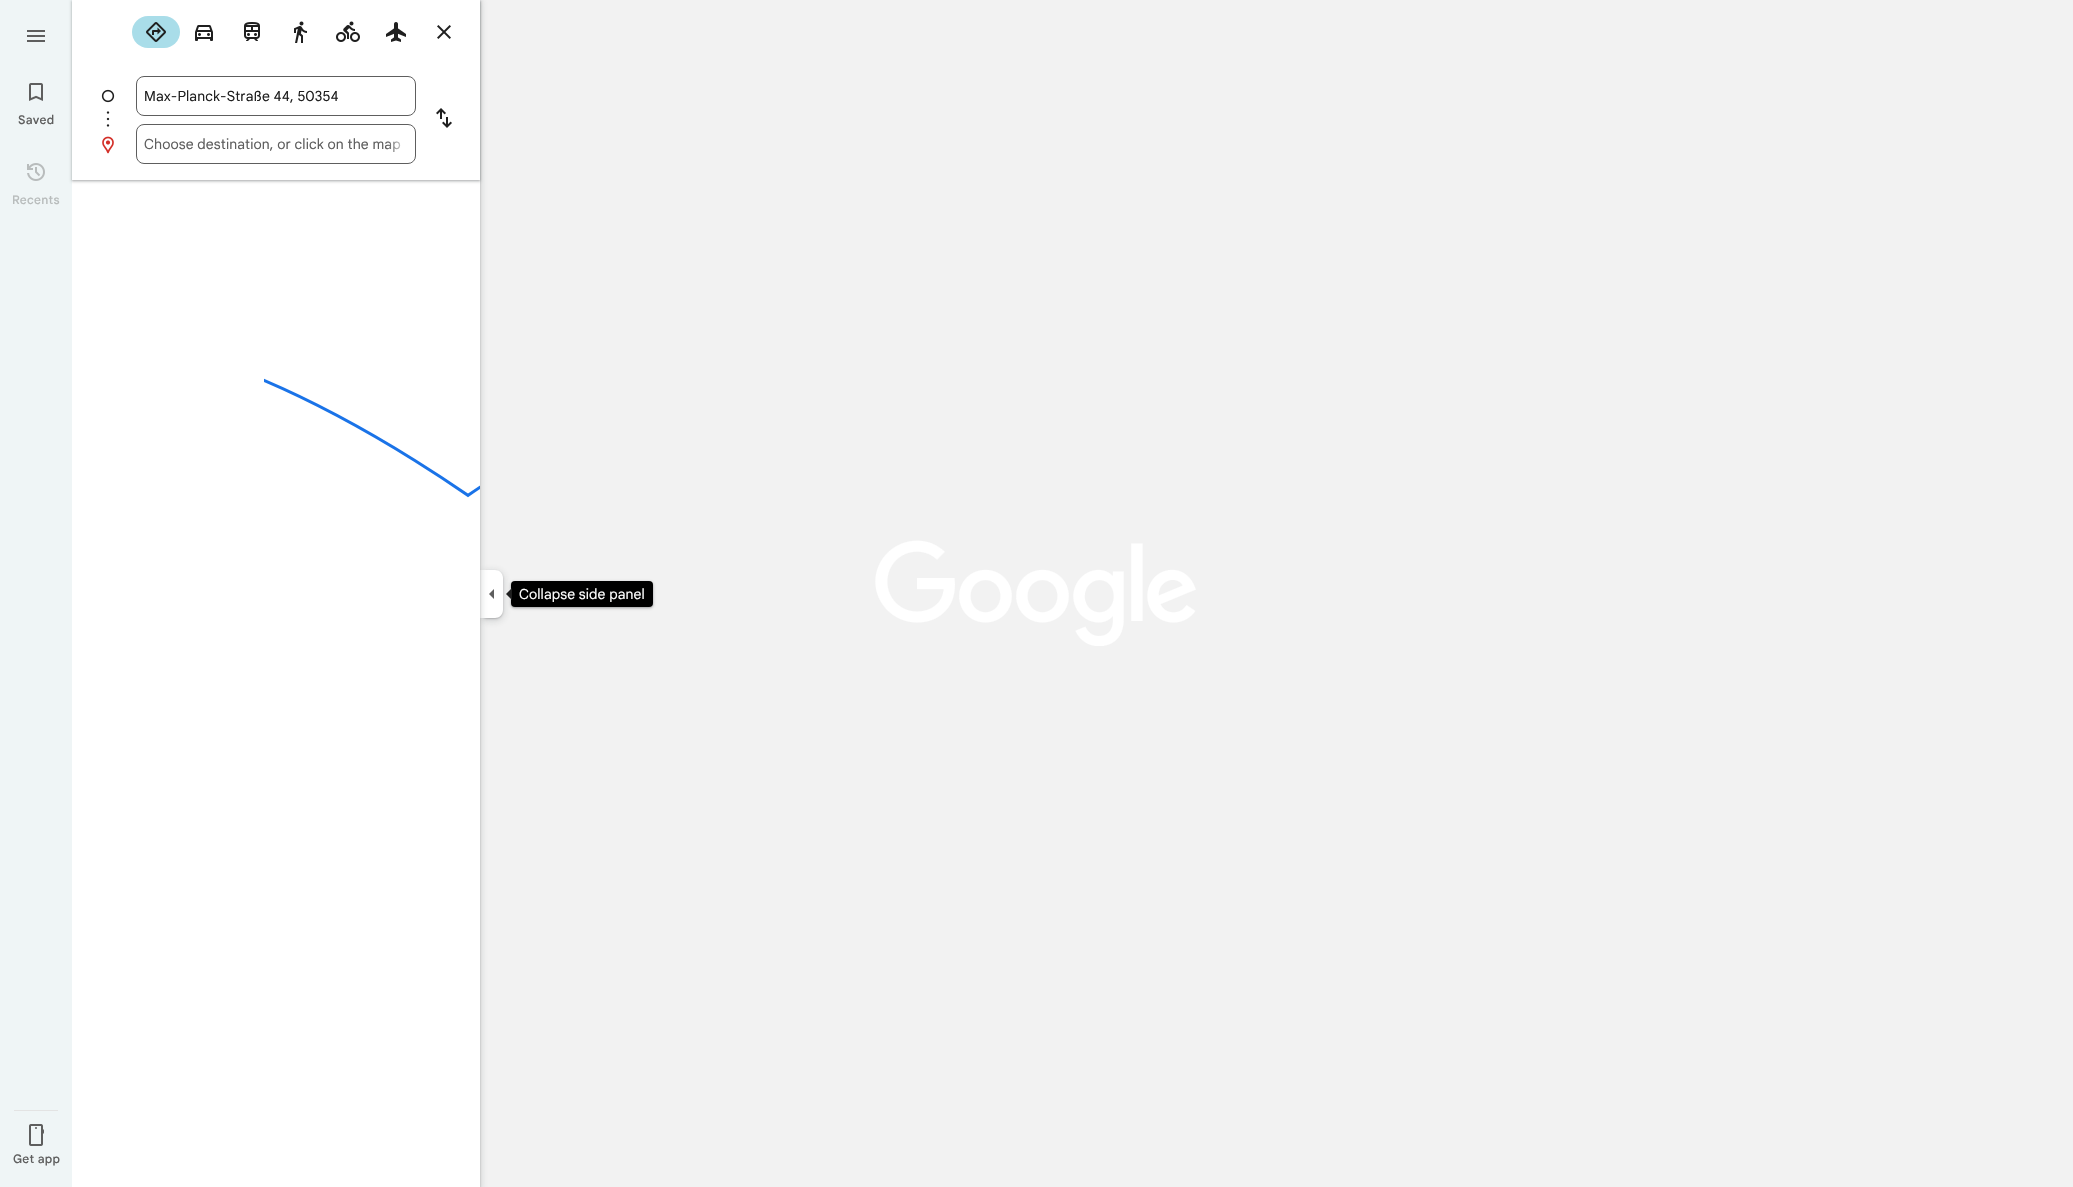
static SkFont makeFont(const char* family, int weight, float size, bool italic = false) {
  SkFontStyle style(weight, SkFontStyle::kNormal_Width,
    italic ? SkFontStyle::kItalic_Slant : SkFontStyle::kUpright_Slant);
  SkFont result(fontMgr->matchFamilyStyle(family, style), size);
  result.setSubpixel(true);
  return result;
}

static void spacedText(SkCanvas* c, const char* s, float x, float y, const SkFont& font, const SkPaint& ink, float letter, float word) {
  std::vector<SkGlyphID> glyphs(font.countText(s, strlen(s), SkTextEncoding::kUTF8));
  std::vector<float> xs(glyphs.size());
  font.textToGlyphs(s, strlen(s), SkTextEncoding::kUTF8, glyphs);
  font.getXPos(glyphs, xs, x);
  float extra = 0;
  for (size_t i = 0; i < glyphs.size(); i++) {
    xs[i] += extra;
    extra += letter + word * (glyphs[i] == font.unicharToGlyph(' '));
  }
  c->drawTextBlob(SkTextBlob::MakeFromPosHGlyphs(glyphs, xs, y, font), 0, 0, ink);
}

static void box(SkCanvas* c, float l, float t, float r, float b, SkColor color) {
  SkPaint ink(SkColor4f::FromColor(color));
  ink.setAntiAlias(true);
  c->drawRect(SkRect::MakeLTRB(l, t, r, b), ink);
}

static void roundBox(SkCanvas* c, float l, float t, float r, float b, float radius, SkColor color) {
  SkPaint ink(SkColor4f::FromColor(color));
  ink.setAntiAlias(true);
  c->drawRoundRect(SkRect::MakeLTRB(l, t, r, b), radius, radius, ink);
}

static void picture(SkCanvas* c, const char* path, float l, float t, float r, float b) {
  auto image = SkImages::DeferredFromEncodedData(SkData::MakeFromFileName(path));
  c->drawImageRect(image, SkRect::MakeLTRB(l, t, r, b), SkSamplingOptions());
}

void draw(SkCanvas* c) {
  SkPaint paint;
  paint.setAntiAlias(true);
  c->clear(0xfff2f2f2);
  paint.setColor(0x263c4043);
  paint.setMaskFilter(SkMaskFilter::MakeBlur(kNormal_SkBlurStyle, 3));
  c->drawRoundRect(SkRect::MakeLTRB(478, 570, 505, 622), 10, 10, paint);
  paint.setMaskFilter(nullptr);
  paint.setColor(0x4d3c4043);
  paint.setMaskFilter(SkMaskFilter::MakeBlur(kNormal_SkBlurStyle, 1));
  c->drawRoundRect(SkRect::MakeLTRB(480, 571, 503, 619), 8, 8, paint);
  paint.setMaskFilter(nullptr);
  paint.setColor(0xffffffff);
  c->drawPath(SkPathBuilder().moveTo(480, 570).lineTo(495, 570).cubicTo(499.5f, 570, 503, 573.5f, 503, 578).lineTo(503, 610).cubicTo(503, 614.5f, 499.5f, 618, 495, 618).lineTo(480, 618).close().detach(), paint);
  paint.setColor(0xff5e5e5e);
  c->drawPath(SkPathBuilder().moveTo(494, 599).lineTo(489, 594).lineTo(494, 589).close().detach(), paint);
  paint.setColor(0x263c4043);
  paint.setMaskFilter(SkMaskFilter::MakeBlur(kNormal_SkBlurStyle, 3));
  c->drawRect(SkRect::MakeLTRB(70, 0, 482, 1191), paint);
  paint.setMaskFilter(nullptr);
  paint.setColor(0x4d3c4043);
  paint.setMaskFilter(SkMaskFilter::MakeBlur(kNormal_SkBlurStyle, 1));
  c->drawRect(SkRect::MakeLTRB(72, 1, 480, 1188), paint);
  paint.setMaskFilter(nullptr);
  box(c, 0, 0, 72, 1187, 0xffeff5f6);
  box(c, 72, 180, 480, 1187, 0xffffffff);
  paint.setColor(0x263c4043);
  paint.setMaskFilter(SkMaskFilter::MakeBlur(kNormal_SkBlurStyle, 1.5f));
  c->drawRect(SkRect::MakeLTRB(71, 0, 481, 182), paint);
  paint.setMaskFilter(nullptr);
  paint.setColor(0x4d3c4043);
  paint.setMaskFilter(SkMaskFilter::MakeBlur(kNormal_SkBlurStyle, 1));
  c->drawRect(SkRect::MakeLTRB(72, 1, 480, 181), paint);
  paint.setMaskFilter(nullptr);
  box(c, 72, 0, 480, 180, 0xffffffff);
  roundBox(c, 132, 16, 180, 48, 16, 0xffa9dde9);
  picture(c, "img_01.png", 146, 22, 166, 42);
  picture(c, "img_02.png", 195, 25, 213, 41);
  picture(c, "img_03.png", 244, 22, 260, 41);
  picture(c, "img_04.png", 294, 21, 307, 43);
  picture(c, "img_05.png", 336, 21, 360, 42);
  picture(c, "img_06.png", 386, 22, 406, 42);
  picture(c, "img_07.png", 437, 25, 451, 39);
  picture(c, "img_08.png", 101, 89, 115, 103);
  picture(c, "img_09.png", 106, 111, 110, 127);
  paint.setStyle(SkPaint::kStroke_Style);
  paint.setStrokeWidth(1);
  paint.setColor(0xff5e5e5e);
  c->drawRoundRect(SkRect::MakeLTRB(136.5f, 76.5f, 415.5f, 115.5f), 7.5f, 7.5f, paint);
  SkFont face1 = makeFont("Google Sans", 400, 14);
  paint.setStyle(SkPaint::kFill_Style);
  paint.setColor(0xff1f1f1f);
  spacedText(c, "Max-Planck-Straße 44, 50354", 144, 101, face1, paint, 0.1f, 0);
  picture(c, "img_10.png", 102, 136, 114, 154);
  paint.setStyle(SkPaint::kStroke_Style);
  paint.setColor(0xff5e5e5e);
  c->drawRoundRect(SkRect::MakeLTRB(136.5f, 124.5f, 415.5f, 163.5f), 7.5f, 7.5f, paint);
  paint.setStyle(SkPaint::kFill_Style);
  spacedText(c, "Choose destination, or click on the map", 144, 149, face1, paint, 0.1f, 0);
  {
    const SkColor colors[] = {0x00ffffff, 0xffffffff};
    const float stops[] = {0, 1};
    const SkPoint ends[] = {{388, 144}, {408, 144}};
    paint.setShader(SkGradientShader::MakeLinear(ends, colors, stops, 2, SkTileMode::kClamp));
    paint.setAlpha(255);
  }
  c->drawRect(SkRect::MakeLTRB(388, 141, 400, 152), paint);
  picture(c, "img_11.png", 436, 108, 452, 128);
  picture(c, "img_12.png", 27, 30, 45, 42);
  picture(c, "img_13.png", 29, 83, 43, 101);
  SkFont face2 = makeFont("Google Sans", 500, 12);
  paint.setShader(nullptr);
  paint.setColor(0xff5e5e5e);
  spacedText(c, "Saved", 18, 124, face2, paint, 0.25f, 0);
  picture(c, "img_14.png", 27, 163, 45, 181);
  paint.setColor(0xffb8bcbc);
  spacedText(c, "Recents", 12, 204, face2, paint, 0.25f, 0);
  box(c, 14, 1110, 58, 1111, 0xffe3e3e3);
  picture(c, "img_15.png", 29, 1124, 44, 1146);
  paint.setColor(0xff5e5e5e);
  spacedText(c, "Get app", 13, 1163, face2, paint, 0.25f, 0);
  c->save();
  c->clipRect(SkRect::MakeLTRB(264, 156, 468, 1187));
  paint.setStyle(SkPaint::kStroke_Style);
  paint.setStrokeWidth(3);
  paint.setColor(0xff1a73e8);
  c->drawPath(SkPathBuilder().moveTo(239.5f, 370.5f).cubicTo(349, 413, 478, 493.5f, 598, 594.5f).cubicTo(718.5f, 695.5f, 820, 808.5f, 880.5f, 909).cubicTo(941.5f, 1009.5f, 956, 1089, 921.5f, 1130).cubicTo(887, 1171, 806, 1170.5f, 696.5f, 1128.5f).detach(), paint);
  c->restore();
  c->save();
  c->clipRect(SkRect::MakeLTRB(468, 156, 480, 1187));
  c->drawPath(SkPathBuilder().moveTo(239.5f, 1128.5f).cubicTo(130, 1170.5f, 49, 1171, 14.5f, 1130).cubicTo(-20, 1089, -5.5f, 1009.5f, 55.5f, 909).cubicTo(116, 808.5f, 217.5f, 695.5f, 338, 594.5f).cubicTo(458, 493.5f, 587, 413, 696.5f, 370.5f).detach(), paint);
  c->restore();
  paint.setStyle(SkPaint::kFill_Style);
  paint.setColor(0x263c4043);
  paint.setMaskFilter(SkMaskFilter::MakeBlur(kNormal_SkBlurStyle, 1.5f));
  c->drawRoundRect(SkRect::MakeLTRB(510, 581, 654, 609), 5, 5, paint);
  paint.setMaskFilter(nullptr);
  paint.setColor(0x4d3c4043);
  paint.setMaskFilter(SkMaskFilter::MakeBlur(kNormal_SkBlurStyle, 1));
  c->drawRoundRect(SkRect::MakeLTRB(511, 582, 653, 608), 4, 4, paint);
  paint.setMaskFilter(nullptr);
  roundBox(c, 511, 581, 653, 607, 4, 0xff000000);
  paint.setColor(0xff1f1f1f);
  c->drawPath(SkPathBuilder().moveTo(512, 588).lineTo(512, 600).lineTo(506, 594).close().detach(), paint);
  paint.setColor(0xffffffff);
  spacedText(c, "Collapse side panel", 519, 599, face1, paint, 0.1f, 0);
  picture(c, "img_16.png", 875, 540, 1196, 646);
}
